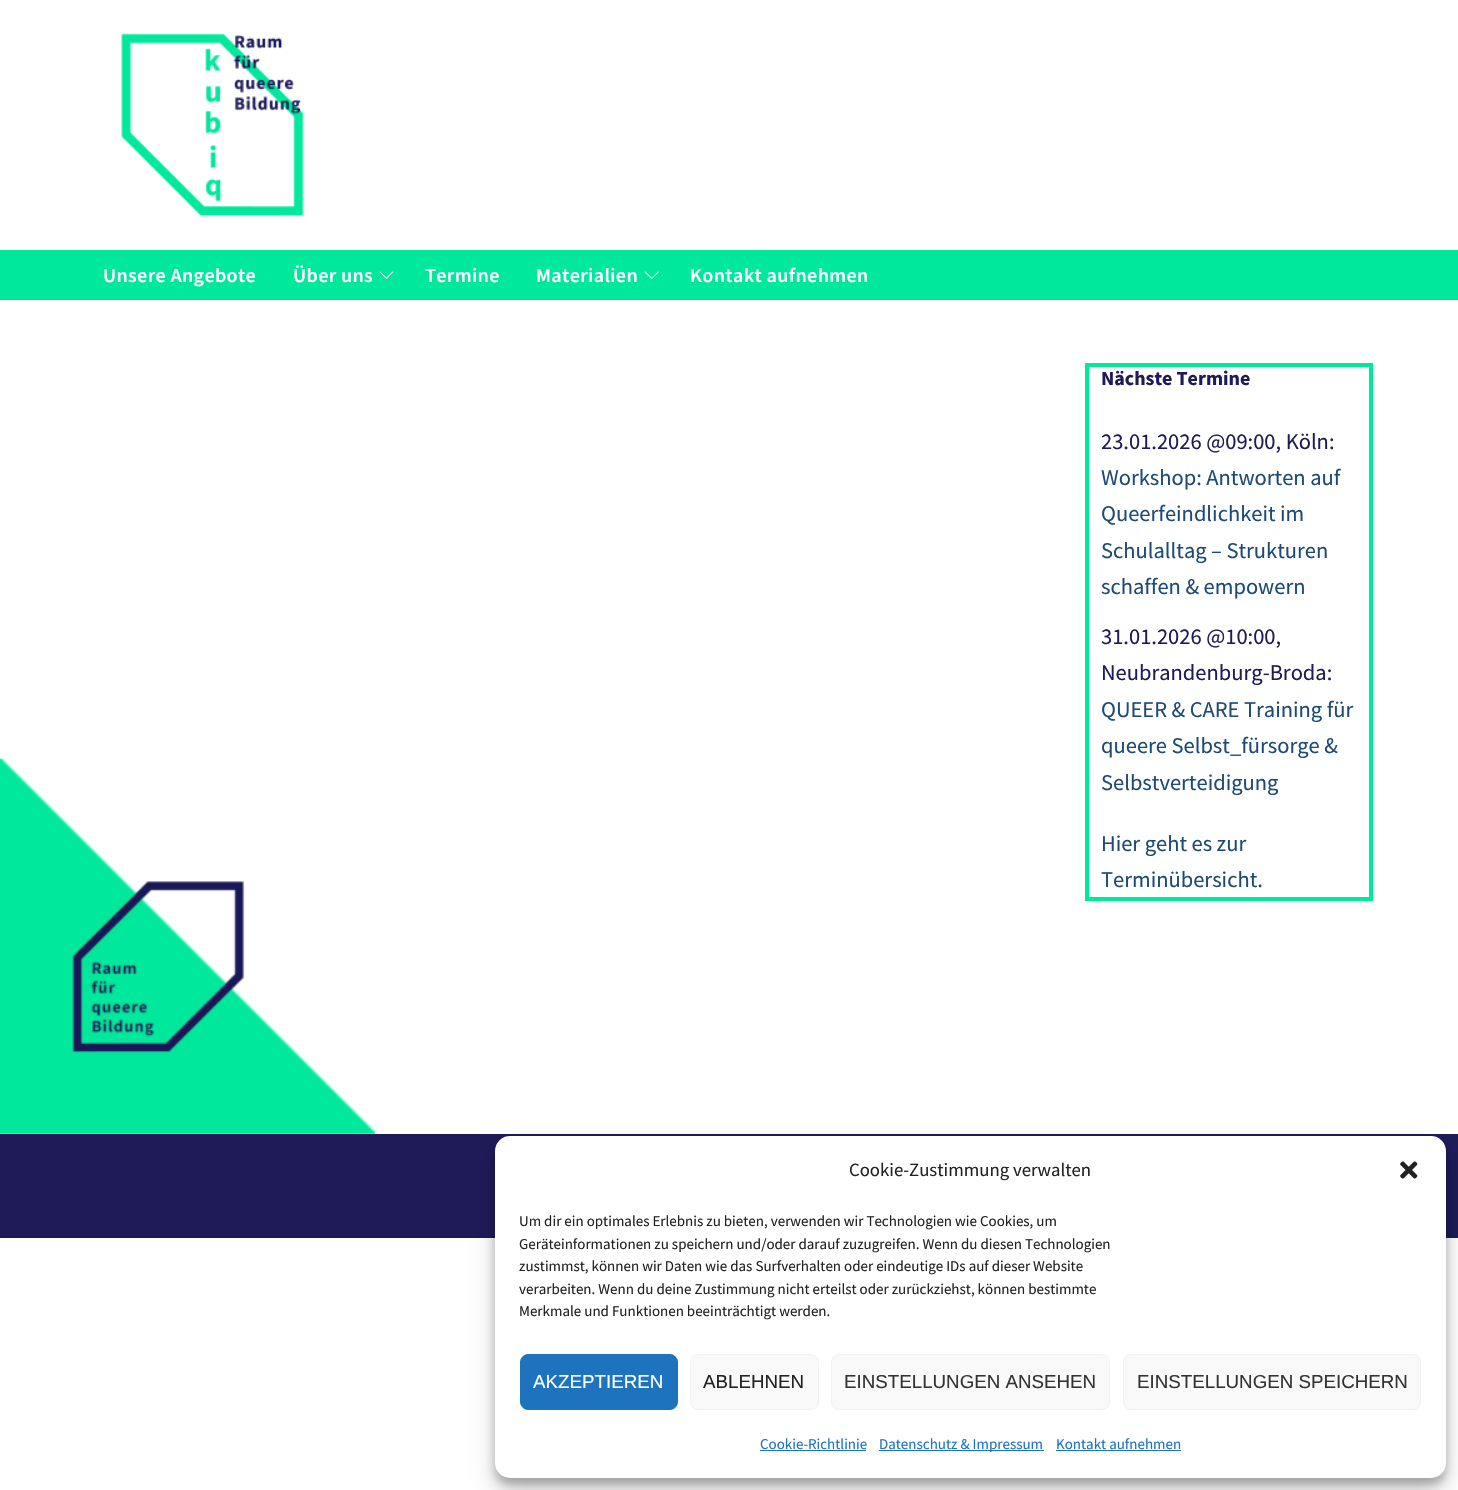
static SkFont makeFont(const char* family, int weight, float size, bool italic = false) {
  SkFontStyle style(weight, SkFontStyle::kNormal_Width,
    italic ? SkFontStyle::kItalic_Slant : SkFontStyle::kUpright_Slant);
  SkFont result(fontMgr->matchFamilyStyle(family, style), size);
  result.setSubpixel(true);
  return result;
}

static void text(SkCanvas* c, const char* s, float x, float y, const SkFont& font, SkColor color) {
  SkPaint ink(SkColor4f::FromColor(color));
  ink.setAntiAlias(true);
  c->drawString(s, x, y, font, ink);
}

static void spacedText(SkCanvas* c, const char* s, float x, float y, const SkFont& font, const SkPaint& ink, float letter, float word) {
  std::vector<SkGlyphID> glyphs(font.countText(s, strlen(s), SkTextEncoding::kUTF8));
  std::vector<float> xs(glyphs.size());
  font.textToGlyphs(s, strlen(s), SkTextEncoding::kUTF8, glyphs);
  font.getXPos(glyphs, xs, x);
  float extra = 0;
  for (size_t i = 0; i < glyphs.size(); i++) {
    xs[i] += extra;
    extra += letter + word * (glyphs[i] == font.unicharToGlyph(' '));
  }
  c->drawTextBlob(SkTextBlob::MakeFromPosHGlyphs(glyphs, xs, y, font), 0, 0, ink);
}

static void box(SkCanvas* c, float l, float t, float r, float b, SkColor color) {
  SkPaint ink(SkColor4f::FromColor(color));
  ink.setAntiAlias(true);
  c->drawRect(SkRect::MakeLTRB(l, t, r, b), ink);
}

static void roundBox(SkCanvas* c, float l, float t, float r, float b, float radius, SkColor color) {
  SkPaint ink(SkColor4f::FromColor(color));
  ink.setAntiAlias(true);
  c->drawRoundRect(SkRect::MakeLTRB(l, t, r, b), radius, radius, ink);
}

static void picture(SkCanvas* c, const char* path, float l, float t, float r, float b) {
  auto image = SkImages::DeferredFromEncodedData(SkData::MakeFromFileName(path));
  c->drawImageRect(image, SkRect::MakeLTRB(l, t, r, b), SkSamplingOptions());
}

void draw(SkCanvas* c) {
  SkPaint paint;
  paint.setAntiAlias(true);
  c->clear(0xffffffff);
  picture(c, "img_01.png", 121, 33, 304, 217);
  box(c, 0, 250, 1458, 300, 0xff00e89c);
  SkFont face1 = makeFont("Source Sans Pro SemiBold", 600, 20);
  paint.setColor(0xffffffff);
  spacedText(c, "Unsere Angebote", 103, 282, face1, paint, 0.4f, 0);
  spacedText(c, "Über uns", 293, 282, face1, paint, 0.4f, 0);
  c->drawPath(SkPathBuilder().moveTo(386.5f, 279).lineTo(379.5f, 272).lineTo(380, 271.5f).lineTo(387.5f, 278.5f).close().detach(), paint);
  c->drawPath(SkPathBuilder().moveTo(386.5f, 279).lineTo(385.5f, 278.5f).lineTo(392.5f, 271.5f).lineTo(393.5f, 272).close().detach(), paint);
  spacedText(c, "Termine", 425, 282, face1, paint, 0.4f, 0);
  spacedText(c, "Materialien", 536, 282, face1, paint, 0.4f, 0);
  c->drawPath(SkPathBuilder().moveTo(651.5f, 279).lineTo(644.5f, 272).lineTo(645.5f, 271.5f).lineTo(652.5f, 278.5f).close().detach(), paint);
  c->drawPath(SkPathBuilder().moveTo(651.5f, 279).lineTo(651, 278.5f).lineTo(658, 271.5f).lineTo(659, 272).close().detach(), paint);
  spacedText(c, "Kontakt aufnehmen", 690, 282, face1, paint, 0.4f, 0);
  picture(c, "img_02.png", 0, 758, 375, 1134);
  paint.setStyle(SkPaint::kStroke_Style);
  paint.setStrokeWidth(4);
  paint.setColor(0xff00e89c);
  c->drawRect(SkRect::MakeLTRB(1087, 365, 1371, 899), paint);
  SkFont face2 = makeFont("Source Sans Pro", 700, 20);
  text(c, "Nächste Termine", 1101, 385, face2, 0xff1f1b59);
  SkFont face3 = makeFont("Source Sans Pro", 400, 22.5f);
  text(c, "23.01.2026 @09:00, Köln:", 1101, 449, face3, 0xff1f1b59);
  text(c, "Workshop: Antworten auf", 1101, 485, face3, 0xff1e4b75);
  text(c, "Queerfeindlichkeit im", 1101, 521, face3, 0xff1e4b75);
  text(c, "Schulalltag – Strukturen", 1101, 558, face3, 0xff1e4b75);
  text(c, "schaffen & empowern", 1101, 594, face3, 0xff1e4b75);
  text(c, "31.01.2026 @10:00,", 1101, 644, face3, 0xff1f1b59);
  text(c, "Neubrandenburg-Broda:", 1101, 680, face3, 0xff1f1b59);
  text(c, "QUEER & CARE Training für", 1101, 717, face3, 0xff1e4b75);
  text(c, "queere Selbst_fürsorge &", 1101, 753, face3, 0xff1e4b75);
  text(c, "Selbstverteidigung", 1101, 790, face3, 0xff1e4b75);
  text(c, "Hier geht es zur", 1101, 851, face3, 0xff1e4b75);
  text(c, "Terminübersicht.", 1101, 887, face3, 0xff1e4b75);
  box(c, 0, 1134, 1458, 1238, 0xff1f1b59);
  paint.setStyle(SkPaint::kFill_Style);
  paint.setColor(0x3b000000);
  paint.setMaskFilter(SkMaskFilter::MakeBlur(kNormal_SkBlurStyle, 4));
  c->drawRoundRect(SkRect::MakeLTRB(495, 1144, 1446, 1485), 15, 15, paint);
  paint.setMaskFilter(nullptr);
  paint.setColor(0x30000000);
  paint.setMaskFilter(SkMaskFilter::MakeBlur(kNormal_SkBlurStyle, 12.5f));
  c->drawRoundRect(SkRect::MakeLTRB(495, 1149, 1446, 1490), 15, 15, paint);
  paint.setMaskFilter(nullptr);
  roundBox(c, 495, 1136, 1446, 1478, 15, 0xffffffff);
  SkFont face4 = makeFont("Source Sans Pro", 400, 18.75f);
  text(c, "Cookie-Zustimmung verwalten", 849, 1176, face4, 0xff222222);
  picture(c, "img_03.png", 1400, 1161, 1418, 1179);
  SkFont face5 = makeFont("Source Sans Pro", 400, 15);
  text(c, "Um dir ein optimales Erlebnis zu bieten, verwenden wir Technologien wie Cookies, um", 519, 1226, face5, 0xff222222);
  text(c, "Geräteinformationen zu speichern und/oder darauf zuzugreifen. Wenn du diesen Technologien", 519, 1249, face5, 0xff222222);
  text(c, "zustimmst, können wir Daten wie das Surfverhalten oder eindeutige IDs auf dieser Website", 519, 1271, face5, 0xff222222);
  text(c, "verarbeiten. Wenn du deine Zustimmung nicht erteilst oder zurückziehst, können bestimmte", 519, 1294, face5, 0xff222222);
  text(c, "Merkmale und Funktionen beeinträchtigt werden.", 519, 1316, face5, 0xff222222);
  paint.setColor(0xff1e73be);
  c->drawRoundRect(SkRect::MakeLTRB(520.5f, 1354.5f, 677.5f, 1409.5f), 7.5f, 7.5f, paint);
  paint.setStyle(SkPaint::kStroke_Style);
  paint.setStrokeWidth(1);
  c->drawRoundRect(SkRect::MakeLTRB(520.5f, 1354.5f, 677.5f, 1409.5f), 7.5f, 7.5f, paint);
  SkFont face6 = makeFont("Liberation Sans", 400, 18.75f);
  text(c, "AKZEPTIEREN", 533, 1388, face6, 0xffffffff);
  paint.setStyle(SkPaint::kFill_Style);
  paint.setColor(0xfff9f9f9);
  c->drawRoundRect(SkRect::MakeLTRB(690.5f, 1354.5f, 818.5f, 1409.5f), 7.5f, 7.5f, paint);
  paint.setStyle(SkPaint::kStroke_Style);
  paint.setColor(0xfff2f2f2);
  c->drawRoundRect(SkRect::MakeLTRB(690.5f, 1354.5f, 818.5f, 1409.5f), 7.5f, 7.5f, paint);
  text(c, "ABLEHNEN", 703, 1388, face6, 0xff222222);
  paint.setStyle(SkPaint::kFill_Style);
  paint.setColor(0xfff9f9f9);
  c->drawRoundRect(SkRect::MakeLTRB(831.5f, 1354.5f, 1109.5f, 1409.5f), 7.5f, 7.5f, paint);
  paint.setStyle(SkPaint::kStroke_Style);
  paint.setColor(0xfff2f2f2);
  c->drawRoundRect(SkRect::MakeLTRB(831.5f, 1354.5f, 1109.5f, 1409.5f), 7.5f, 7.5f, paint);
  text(c, "EINSTELLUNGEN ANSEHEN", 844, 1388, face6, 0xff333333);
  paint.setStyle(SkPaint::kFill_Style);
  paint.setColor(0xfff9f9f9);
  c->drawRoundRect(SkRect::MakeLTRB(1123.5f, 1354.5f, 1420.5f, 1409.5f), 7.5f, 7.5f, paint);
  paint.setStyle(SkPaint::kStroke_Style);
  paint.setColor(0xfff2f2f2);
  c->drawRoundRect(SkRect::MakeLTRB(1123.5f, 1354.5f, 1420.5f, 1409.5f), 7.5f, 7.5f, paint);
  text(c, "EINSTELLUNGEN SPEICHERN", 1137, 1388, face6, 0xff333333);
  text(c, "Cookie-Richtlinie", 760, 1449, face5, 0xff1e73be);
  box(c, 760, 1450, 866, 1451, 0xff1e73be);
  box(c, 879, 1450, 1044, 1451, 0xff1e73be);
  text(c, "Datenschutz & Impressum", 879, 1449, face5, 0xff1e73be);
  text(c, "Kontakt aufnehmen", 1056, 1449, face5, 0xff1e73be);
  box(c, 1056, 1450, 1181, 1451, 0xff1e73be);
}
